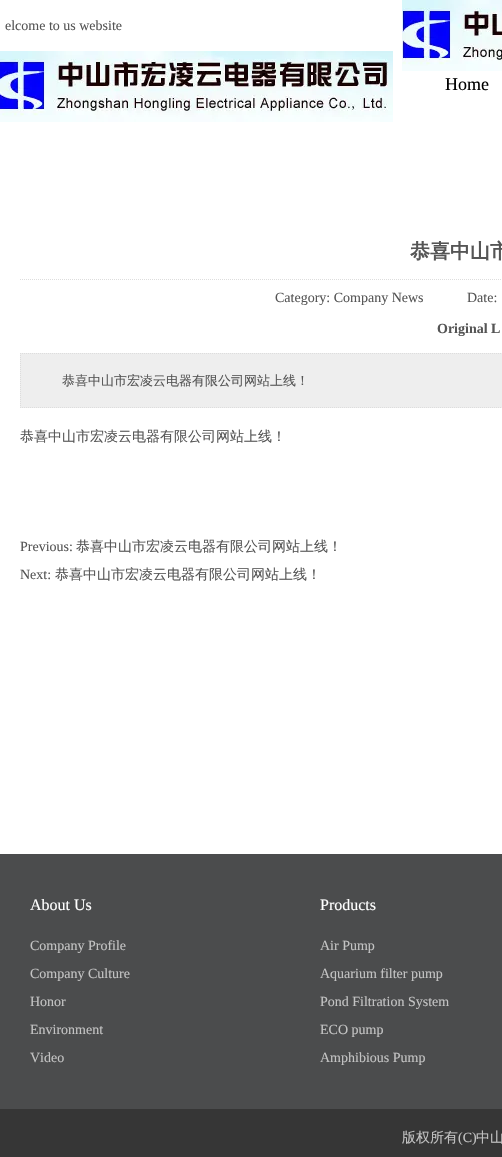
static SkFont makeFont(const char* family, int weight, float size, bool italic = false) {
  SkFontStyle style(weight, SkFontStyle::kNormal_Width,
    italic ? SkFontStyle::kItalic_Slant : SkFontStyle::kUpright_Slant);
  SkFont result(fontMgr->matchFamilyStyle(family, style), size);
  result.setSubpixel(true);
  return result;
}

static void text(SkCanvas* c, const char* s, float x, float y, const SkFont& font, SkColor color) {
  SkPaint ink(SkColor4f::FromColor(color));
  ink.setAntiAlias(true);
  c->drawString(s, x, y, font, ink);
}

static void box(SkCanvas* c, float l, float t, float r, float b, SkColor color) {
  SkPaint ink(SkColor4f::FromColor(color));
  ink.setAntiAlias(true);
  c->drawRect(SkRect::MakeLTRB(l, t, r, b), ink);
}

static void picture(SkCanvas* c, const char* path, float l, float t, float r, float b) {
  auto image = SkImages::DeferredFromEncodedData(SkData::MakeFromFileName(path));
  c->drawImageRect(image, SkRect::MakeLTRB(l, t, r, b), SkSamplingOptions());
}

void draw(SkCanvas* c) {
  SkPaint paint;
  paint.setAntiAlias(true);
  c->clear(0xffffffff);
  picture(c, "img_01.png", 402, 0, 502, 71);
  SkFont face1 = makeFont("Liberation Serif", 400, 14);
  text(c, "elcome to us website", 5, 30, face1, 0xff555555);
  picture(c, "img_02.png", 0, 51, 393, 122);
  SkFont face2 = makeFont("Liberation Serif", 400, 18);
  text(c, "Home", 445, 90, face2, 0xff000000);
  paint.setStyle(SkPaint::kStroke_Style);
  paint.setStrokeWidth(1);
  paint.setColor(0xffdddddd);
  paint.setPathEffect(SkDashPathEffect::Make({{1, 1}}, 0));
  c->drawPath(SkPathBuilder().moveTo(20, 279.5f).lineTo(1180, 279.5f).detach(), paint);
  paint.setPathEffect(nullptr);
  SkFont face3 = makeFont("WenQuanYi Zen Hei", 700, 20);
  text(c, "恭喜中山市", 410, 258, face3, 0xff555555);
  text(c, "Category: Company News", 275, 302, face1, 0xff555555);
  text(c, "Date:", 467, 302, face1, 0xff555555);
  SkFont face4 = makeFont("Liberation Serif", 700, 14);
  text(c, "Original L", 437, 333, face4, 0xff555555);
  box(c, 20, 353, 502, 408, 0xffeeeeee);
  paint.setPathEffect(SkDashPathEffect::Make({{1, 1}}, 0));
  c->drawPath(SkPathBuilder().moveTo(20, 353.5f).lineTo(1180, 353.5f).detach(), paint);
  paint.setPathEffect(nullptr);
  paint.setPathEffect(SkDashPathEffect::Make({{1, 1}}, 0));
  c->drawPath(SkPathBuilder().moveTo(20, 407.5f).lineTo(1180, 407.5f).detach(), paint);
  paint.setPathEffect(nullptr);
  paint.setPathEffect(SkDashPathEffect::Make({{1, 1}}, 0));
  c->drawPath(SkPathBuilder().moveTo(20.5f, 353).lineTo(20.5f, 408).detach(), paint);
  paint.setPathEffect(nullptr);
  SkFont face5 = makeFont("WenQuanYi Zen Hei", 500, 13);
  text(c, "恭喜中山市宏凌云电器有限公司网站上线！", 62, 385, face5, 0xff555555);
  SkFont face6 = makeFont("WenQuanYi Zen Hei", 500, 14);
  text(c, "恭喜中山市宏凌云电器有限公司网站上线！", 20, 441, face6, 0xff555555);
  text(c, "Previous:", 20, 551, face1, 0xff555555);
  text(c, "恭喜中山市宏凌云电器有限公司网站上线！", 76, 551, face6, 0xff555555);
  text(c, "Next:", 20, 579, face1, 0xff555555);
  text(c, "恭喜中山市宏凌云电器有限公司网站上线！", 55, 579, face6, 0xff555555);
  box(c, 0, 854, 502, 1109, 0xff4b4c4d);
  SkFont face7 = makeFont("Liberation Serif", 400, 16);
  text(c, "About Us", 30, 910, face7, 0xffffffff);
  text(c, "Company Profile", 30, 950, face1, 0xffc3c3c3);
  text(c, "Company Culture", 30, 978, face1, 0xffc3c3c3);
  text(c, "Honor", 30, 1006, face1, 0xffc3c3c3);
  text(c, "Environment", 30, 1034, face1, 0xffc3c3c3);
  text(c, "Video", 30, 1062, face1, 0xffc3c3c3);
  text(c, "Products", 320, 910, face7, 0xffffffff);
  text(c, "Air Pump", 320, 950, face1, 0xffc3c3c3);
  text(c, "Aquarium filter pump", 320, 978, face1, 0xffc3c3c3);
  text(c, "Pond Filtration System", 320, 1006, face1, 0xffc3c3c3);
  text(c, "ECO pump", 320, 1034, face1, 0xffc3c3c3);
  text(c, "Amphibious Pump", 320, 1062, face1, 0xffc3c3c3);
  box(c, 0, 1109, 502, 1157, 0xff363636);
  text(c, "版权所有", 402, 1142, face6, 0xffc3c3c3);
  text(c, "(C)", 458, 1142, face1, 0xffc3c3c3);
  text(c, "中山", 476, 1142, face6, 0xffc3c3c3);
}
